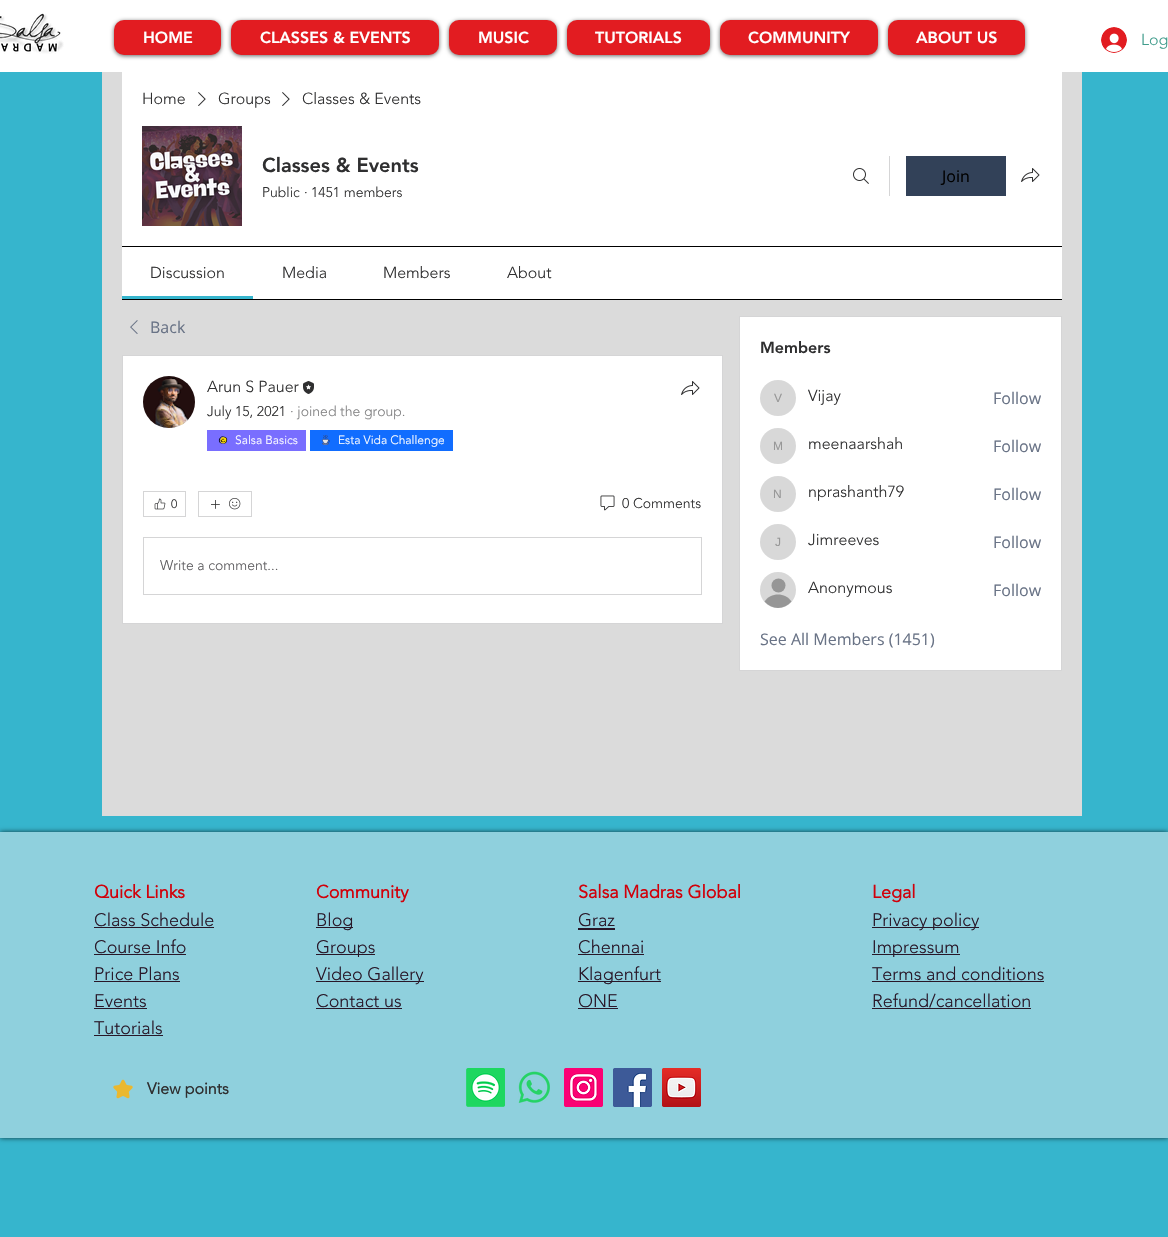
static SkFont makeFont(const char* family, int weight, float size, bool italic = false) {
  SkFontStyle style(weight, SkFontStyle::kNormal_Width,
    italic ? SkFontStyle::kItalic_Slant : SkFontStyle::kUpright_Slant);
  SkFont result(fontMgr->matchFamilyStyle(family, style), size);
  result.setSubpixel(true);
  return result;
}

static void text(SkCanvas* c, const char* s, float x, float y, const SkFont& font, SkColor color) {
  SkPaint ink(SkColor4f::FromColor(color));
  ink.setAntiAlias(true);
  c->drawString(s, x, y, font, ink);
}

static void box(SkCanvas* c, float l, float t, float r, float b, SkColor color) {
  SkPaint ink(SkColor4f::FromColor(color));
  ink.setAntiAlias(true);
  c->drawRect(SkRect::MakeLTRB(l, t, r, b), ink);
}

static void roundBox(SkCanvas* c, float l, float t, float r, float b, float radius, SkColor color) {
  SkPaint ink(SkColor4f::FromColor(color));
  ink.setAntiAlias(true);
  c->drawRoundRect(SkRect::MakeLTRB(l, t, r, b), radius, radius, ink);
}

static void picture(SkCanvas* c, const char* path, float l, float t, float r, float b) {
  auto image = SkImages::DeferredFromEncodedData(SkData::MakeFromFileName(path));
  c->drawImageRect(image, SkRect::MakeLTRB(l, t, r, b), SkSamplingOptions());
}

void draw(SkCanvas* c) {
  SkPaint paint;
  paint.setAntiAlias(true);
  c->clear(0xff36b5cd);
  box(c, 0, 0, 1168, 72, 0xffffffff);
  picture(c, "img_01.png", 0, 13, 64, 54);
  paint.setColor(0x99000000);
  paint.setMaskFilter(SkMaskFilter::MakeBlur(kNormal_SkBlurStyle, 2));
  c->drawRoundRect(SkRect::MakeLTRB(114, 21, 221, 56), 10, 10, paint);
  paint.setMaskFilter(nullptr);
  roundBox(c, 114, 20, 221, 55, 10, 0xffe21c21);
  SkFont face1 = makeFont("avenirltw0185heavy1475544", 900, 16);
  text(c, "HOME", 143, 43, face1, 0xffffffff);
  paint.setMaskFilter(SkMaskFilter::MakeBlur(kNormal_SkBlurStyle, 2));
  c->drawRoundRect(SkRect::MakeLTRB(231, 21, 439, 56), 10, 10, paint);
  paint.setMaskFilter(nullptr);
  roundBox(c, 231, 20, 439, 55, 10, 0xffe21c21);
  text(c, "CLASSES & EVENTS", 260, 43, face1, 0xffffffff);
  paint.setMaskFilter(SkMaskFilter::MakeBlur(kNormal_SkBlurStyle, 2));
  c->drawRoundRect(SkRect::MakeLTRB(449, 21, 557, 56), 10, 10, paint);
  paint.setMaskFilter(nullptr);
  roundBox(c, 449, 20, 557, 55, 10, 0xffe21c21);
  text(c, "MUSIC", 478, 43, face1, 0xffffffff);
  paint.setMaskFilter(SkMaskFilter::MakeBlur(kNormal_SkBlurStyle, 2));
  c->drawRoundRect(SkRect::MakeLTRB(567, 21, 710, 56), 10, 10, paint);
  paint.setMaskFilter(nullptr);
  roundBox(c, 567, 20, 710, 55, 10, 0xffe21c21);
  text(c, "TUTORIALS", 595, 43, face1, 0xffffffff);
  paint.setMaskFilter(SkMaskFilter::MakeBlur(kNormal_SkBlurStyle, 2));
  c->drawRoundRect(SkRect::MakeLTRB(720, 21, 878, 56), 10, 10, paint);
  paint.setMaskFilter(nullptr);
  roundBox(c, 720, 20, 878, 55, 10, 0xffe21c21);
  text(c, "COMMUNITY", 748, 43, face1, 0xffffffff);
  paint.setMaskFilter(SkMaskFilter::MakeBlur(kNormal_SkBlurStyle, 2));
  c->drawRoundRect(SkRect::MakeLTRB(888, 21, 1025, 56), 10, 10, paint);
  paint.setMaskFilter(nullptr);
  roundBox(c, 888, 20, 1025, 55, 10, 0xffe21c21);
  text(c, "ABOUT US", 916, 43, face1, 0xffffffff);
  picture(c, "img_02.png", 1101, 27, 1127, 53);
  SkFont face2 = makeFont("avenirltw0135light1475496", 300, 16);
  text(c, "Log", 1141, 45, face2, 0xff409c8c);
  box(c, 102, 72, 1082, 816, 0xffdbdbdb);
  box(c, 122, 72, 1062, 299, 0xffffffff);
  text(c, "Home", 142, 104, face2, 0xff2f2f30);
  picture(c, "img_03.png", 198, 92, 206, 106);
  text(c, "Groups", 218, 104, face2, 0xff2f2f30);
  picture(c, "img_03.png", 282, 92, 290, 106);
  text(c, "Classes & Events", 302, 104, face2, 0xff2f2f30);
  picture(c, "img_04.png", 142, 126, 242, 226);
  SkFont face3 = makeFont("avenirltw0185heavy1475544", 900, 20);
  text(c, "Classes & Events", 262, 172, face3, 0xff2f2f30);
  SkFont face4 = makeFont("avenirltw0135light1475496", 300, 14);
  text(c, "Public", 262, 197, face4, 0xff2f2f30);
  text(c, "·", 304, 197, face4, 0xff2f2f30);
  text(c, "1451 members", 311, 197, face4, 0xff2f2f30);
  picture(c, "img_05.png", 853, 168, 869, 184);
  box(c, 889, 156, 890, 196, 0xffd5d5d6);
  box(c, 906, 156, 1006, 196, 0xff324158);
  SkFont face5 = makeFont("Open Sans", 400, 16);
  text(c, "Join", 942, 182, face5, 0xff000000);
  picture(c, "img_06.png", 1021, 168, 1040, 182);
  box(c, 122, 246, 1062, 247, 0xff000000);
  box(c, 122, 299, 1062, 300, 0xff000000);
  box(c, 122, 296, 253, 299, 0xff36b5cd);
  text(c, "Discussion", 150, 278, face2, 0xff2f2f30);
  text(c, "Media", 282, 278, face2, 0xff2f2f30);
  text(c, "Members", 383, 278, face2, 0xff2f2f30);
  text(c, "About", 507, 278, face2, 0xff2f2f30);
  picture(c, "img_07.png", 130, 320, 138, 334);
  text(c, "Back", 150, 333, face5, 0xff697386);
  paint.setColor(0xffffffff);
  c->drawRect(SkRect::MakeLTRB(122.5f, 355.5f, 722.5f, 623.5f), paint);
  paint.setStyle(SkPaint::kStroke_Style);
  paint.setStrokeWidth(1);
  paint.setColor(0xffd5d5d6);
  c->drawRect(SkRect::MakeLTRB(122.5f, 355.5f, 722.5f, 623.5f), paint);
  paint.setStyle(SkPaint::kFill_Style);
  paint.setColor(0xffd8d8d8);
  c->drawCircle(169, 402, 26, paint);
  picture(c, "img_08.png", 143, 376, 195, 428);
  text(c, "Arun S Pauer", 207, 392, face2, 0xff2f2f30);
  picture(c, "img_09.png", 303, 381, 314, 394);
  text(c, "July 15, 2021", 207, 416, face4, 0xff2f2f30);
  text(c, "· joined the group.", 290, 416, face4, 0xff828283);
  box(c, 207, 430, 306, 451, 0xff796eff);
  picture(c, "img_10.png", 218, 436, 228, 444);
  SkFont face6 = makeFont("avenirltw0135light1475496", 300, 12);
  text(c, "Salsa Basics", 235, 444, face6, 0xffffffff);
  box(c, 310, 430, 453, 451, 0xff116dff);
  picture(c, "img_11.png", 322, 435, 330, 445);
  text(c, "Esta Vida Challenge", 338, 444, face6, 0xffffffff);
  picture(c, "img_06.png", 681, 381, 700, 395);
  paint.setStyle(SkPaint::kStroke_Style);
  paint.setColor(0xffd5d5d6);
  c->drawRect(SkRect::MakeLTRB(143.5f, 491.5f, 185.5f, 516.5f), paint);
  picture(c, "img_12.png", 154, 498, 166, 510);
  text(c, "0", 171, 508, face6, 0xff2f2f30);
  c->drawRect(SkRect::MakeLTRB(198.5f, 491.5f, 251.5f, 516.5f), paint);
  picture(c, "img_13.png", 211, 500, 220, 509);
  picture(c, "img_14.png", 229, 498, 241, 510);
  picture(c, "img_15.png", 600, 495, 615, 511);
  text(c, "0 Comments", 622, 508, face4, 0xff2f2f30);
  c->drawRect(SkRect::MakeLTRB(143.5f, 537.5f, 701.5f, 594.5f), paint);
  text(c, "Write a comment...", 160, 570, face4, 0xff5f5e61);
  paint.setStyle(SkPaint::kFill_Style);
  paint.setColor(0xffffffff);
  c->drawRect(SkRect::MakeLTRB(739.5f, 316.5f, 1061.5f, 670.5f), paint);
  paint.setStyle(SkPaint::kStroke_Style);
  paint.setColor(0xffd5d5d6);
  c->drawRect(SkRect::MakeLTRB(739.5f, 316.5f, 1061.5f, 670.5f), paint);
  text(c, "Members", 760, 353, face1, 0xff2f2f30);
  paint.setStyle(SkPaint::kFill_Style);
  paint.setColor(0xffd8d8d8);
  c->drawCircle(778, 398, 18, paint);
  SkFont face7 = makeFont("Liberation Sans", 400, 12);
  text(c, "V", 774, 402, face7, 0xff979797);
  text(c, "Vijay", 808, 401, face2, 0xff2f2f30);
  text(c, "Follow", 993, 404, face5, 0xff697386);
  c->drawCircle(778, 446, 18, paint);
  text(c, "M", 773, 450, face7, 0xff979797);
  text(c, "meenaarshah", 808, 449, face2, 0xff2f2f30);
  text(c, "Follow", 993, 452, face5, 0xff697386);
  c->drawCircle(778, 494, 18, paint);
  text(c, "N", 773, 498, face7, 0xff979797);
  text(c, "nprashanth79", 808, 497, face2, 0xff2f2f30);
  text(c, "Follow", 993, 500, face5, 0xff697386);
  c->drawCircle(778, 542, 18, paint);
  text(c, "J", 775, 546, face7, 0xff979797);
  text(c, "Jimreeves", 808, 545, face2, 0xff2f2f30);
  text(c, "Follow", 993, 548, face5, 0xff697386);
  c->drawCircle(778, 590, 18, paint);
  paint.setColor(0xff969696);
  c->drawCircle(778.5f, 585.5f, 7, paint);
  c->drawPath(SkPathBuilder().moveTo(791.5f, 601.5f).cubicTo(784.5f, 610, 771.5f, 610, 764.5f, 601.5f).cubicTo(770.5f, 592, 785.5f, 592, 791.5f, 601.5f).close().detach(), paint);
  text(c, "Anonymous", 808, 593, face2, 0xff2f2f30);
  text(c, "Follow", 993, 596, face5, 0xff697386);
  text(c, "See All Members (1451)", 760, 645, face5, 0xff697386);
  paint.setColor(0xb3000000);
  paint.setMaskFilter(SkMaskFilter::MakeBlur(kNormal_SkBlurStyle, 2.5f));
  c->drawRect(SkRect::MakeLTRB(0, 832, 1168, 1138), paint);
  paint.setMaskFilter(nullptr);
  box(c, 0, 832, 1168, 1138, 0xff8fd0dd);
  SkFont face8 = makeFont("avenirltw0135light1475496", 700, 18);
  text(c, "Quick Links", 94, 898, face8, 0xffd1000a);
  SkFont face9 = makeFont("avenirltw0135light1475496", 300, 18);
  text(c, "Class Schedule", 94, 926, face9, 0xff281728);
  box(c, 94, 927, 214, 928, 0xff281728);
  text(c, "Course Info", 94, 953, face9, 0xff281728);
  box(c, 94, 954, 186, 955, 0xff281728);
  text(c, "Price Plans", 94, 980, face9, 0xff281728);
  box(c, 94, 981, 180, 982, 0xff281728);
  text(c, "Events", 94, 1007, face9, 0xff281728);
  box(c, 94, 1008, 147, 1009, 0xff281728);
  text(c, "Tutorials", 94, 1034, face9, 0xff281728);
  box(c, 94, 1035, 163, 1036, 0xff281728);
  text(c, "Community", 316, 898, face8, 0xffd1000a);
  box(c, 316, 927, 353, 928, 0xff281728);
  text(c, "Blog", 316, 926, face9, 0xff281728);
  box(c, 316, 954, 375, 955, 0xff281728);
  text(c, "Groups", 316, 953, face9, 0xff281728);
  box(c, 316, 981, 424, 982, 0xff281728);
  text(c, "Video Gallery", 316, 980, face9, 0xff281728);
  text(c, "Contact us", 316, 1007, face9, 0xff281728);
  box(c, 316, 1008, 402, 1009, 0xff281728);
  text(c, "Salsa Madras Global", 578, 898, face8, 0xffd1000a);
  text(c, "Graz", 578, 926, face9, 0xff281728);
  box(c, 578, 928, 615, 930, 0xff281728);
  text(c, "Chennai", 578, 953, face9, 0xff281728);
  box(c, 578, 954, 644, 955, 0xff281728);
  box(c, 578, 981, 661, 982, 0xff281728);
  text(c, "Klagenfurt", 578, 980, face9, 0xff281728);
  text(c, "ONE", 578, 1007, face9, 0xff281728);
  box(c, 578, 1008, 618, 1009, 0xff281728);
  text(c, "Legal", 872, 898, face8, 0xffd1000a);
  box(c, 872, 927, 979, 928, 0xff281728);
  text(c, "Privacy policy", 872, 926, face9, 0xff281728);
  box(c, 872, 954, 960, 955, 0xff281728);
  text(c, "Impressum", 872, 953, face9, 0xff281728);
  text(c, "Terms and conditions", 872, 980, face9, 0xff281728);
  box(c, 872, 981, 1044, 982, 0xff281728);
  text(c, "Refund/cancellation", 872, 1007, face9, 0xff281728);
  box(c, 872, 1008, 1031, 1009, 0xff281728);
  picture(c, "img_16.png", 113, 1079, 133, 1099);
  SkFont face10 = makeFont("avenirltw0135light1475496", 700, 16);
  text(c, "View points", 147, 1094, face10, 0xff2f2f30);
  picture(c, "img_17.png", 466, 1068, 505, 1107);
  picture(c, "img_18.png", 518, 1071, 550, 1103);
  picture(c, "img_19.png", 564, 1068, 603, 1107);
  picture(c, "img_20.png", 613, 1068, 652, 1107);
  picture(c, "img_21.png", 662, 1068, 701, 1107);
}
